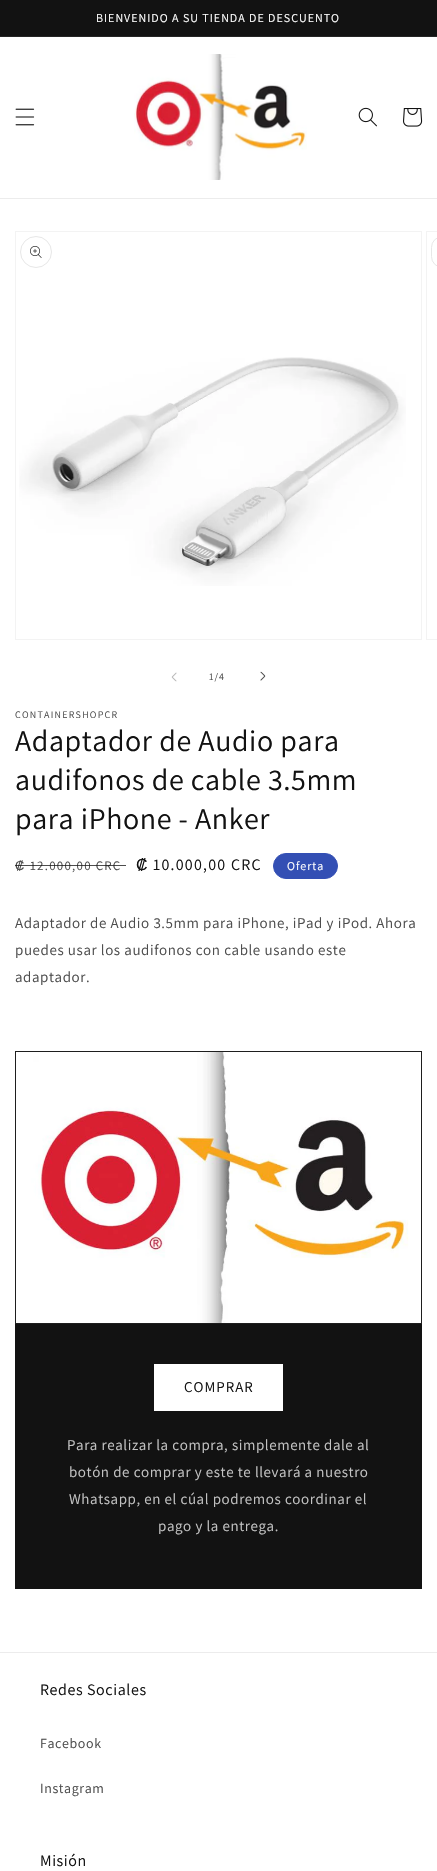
static SkFont makeFont(const char* family, int weight, float size, bool italic = false) {
  SkFontStyle style(weight, SkFontStyle::kNormal_Width,
    italic ? SkFontStyle::kItalic_Slant : SkFontStyle::kUpright_Slant);
  SkFont result(fontMgr->matchFamilyStyle(family, style), size);
  result.setSubpixel(true);
  return result;
}

static void spacedText(SkCanvas* c, const char* s, float x, float y, const SkFont& font, const SkPaint& ink, float letter, float word) {
  std::vector<SkGlyphID> glyphs(font.countText(s, strlen(s), SkTextEncoding::kUTF8));
  std::vector<float> xs(glyphs.size());
  font.textToGlyphs(s, strlen(s), SkTextEncoding::kUTF8, glyphs);
  font.getXPos(glyphs, xs, x);
  float extra = 0;
  for (size_t i = 0; i < glyphs.size(); i++) {
    xs[i] += extra;
    extra += letter + word * (glyphs[i] == font.unicharToGlyph(' '));
  }
  c->drawTextBlob(SkTextBlob::MakeFromPosHGlyphs(glyphs, xs, y, font), 0, 0, ink);
}

static void box(SkCanvas* c, float l, float t, float r, float b, SkColor color) {
  SkPaint ink(SkColor4f::FromColor(color));
  ink.setAntiAlias(true);
  c->drawRect(SkRect::MakeLTRB(l, t, r, b), ink);
}

static void picture(SkCanvas* c, const char* path, float l, float t, float r, float b) {
  auto image = SkImages::DeferredFromEncodedData(SkData::MakeFromFileName(path));
  c->drawImageRect(image, SkRect::MakeLTRB(l, t, r, b), SkSamplingOptions());
}

void draw(SkCanvas* c) {
  SkPaint paint;
  paint.setAntiAlias(true);
  c->clear(0xffffffff);
  box(c, 0, 0, 437, 36, 0xff121212);
  box(c, 0, 36, 437, 37, 0xff252525);
  SkFont face1 = makeFont("Assistant", 400, 12);
  paint.setColor(0xffffffff);
  spacedText(c, "BIENVENIDO A SU TIENDA DE DESCUENTO", 96, 22, face1, paint, 1, 0);
  box(c, 0, 198, 437, 199, 0xffececec);
  picture(c, "img_01.png", 15, 108, 35, 126);
  picture(c, "img_02.png", 134, 54, 307, 180);
  picture(c, "img_03.png", 358, 107, 377, 127);
  picture(c, "img_04.png", 403, 108, 423, 127);
  paint.setStyle(SkPaint::kStroke_Style);
  paint.setStrokeWidth(1);
  paint.setColor(0xfff3f3f3);
  c->drawRect(SkRect::MakeLTRB(15.5f, 231.5f, 421.5f, 639.5f), paint);
  picture(c, "img_05.png", 19, 357, 406, 586);
  paint.setColor(0xffe7e7e7);
  c->drawCircle(36, 252, 15.5f, paint);
  picture(c, "img_06.png", 30, 246, 42, 258);
  paint.setColor(0xfff3f3f3);
  c->drawRect(SkRect::MakeLTRB(426.5f, 231.5f, 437.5f, 639.5f), paint);
  paint.setColor(0xffe7e7e7);
  c->drawRoundRect(SkRect::MakeLTRB(431.5f, 236.5f, 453.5f, 267.5f), 15.5f, 15.5f, paint);
  picture(c, "img_07.png", 171, 672, 177, 682);
  SkFont face2 = makeFont("Assistant", 400, 10);
  paint.setStyle(SkPaint::kFill_Style);
  paint.setColor(0xff4d4d4d);
  spacedText(c, "1/4", 209, 680, face2, paint, 1, 0);
  picture(c, "img_08.png", 260, 671, 266, 681);
  spacedText(c, "CONTAINERSHOPCR", 15, 718, face2, paint, 1.25f, 0);
  SkFont face3 = makeFont("Assistant", 400, 30);
  paint.setColor(0xff121212);
  spacedText(c, "Adaptador de Audio para", 15, 751, face3, paint, 0.6f, 0);
  spacedText(c, "audifonos de cable 3.5mm", 15, 790, face3, paint, 0.6f, 0);
  spacedText(c, "para iPhone - Anker", 15, 829, face3, paint, 0.6f, 0);
  SkFont face4 = makeFont("Liberation Sans", 400, 13);
  paint.setColor(0xff4d4d4d);
  spacedText(c, "₡", 15, 870, face4, paint, 1.25f, 0);
  SkFont face5 = makeFont("Assistant", 400, 13);
  spacedText(c, "12.000,00 CRC", 30, 870, face5, paint, 1.25f, 0);
  box(c, 15, 865, 126, 866, 0xbf121212);
  SkFont face6 = makeFont("Liberation Sans", 400, 16);
  paint.setColor(0xff121212);
  spacedText(c, "₡", 136, 870, face6, paint, 1.25f, 0);
  SkFont face7 = makeFont("Assistant", 400, 16);
  spacedText(c, "10.000,00 CRC", 153, 870, face7, paint, 1.25f, 0);
  paint.setColor(0xff334fb4);
  c->drawRoundRect(SkRect::MakeLTRB(273.5f, 853.5f, 337.5f, 878.5f), 12.5f, 12.5f, paint);
  paint.setStyle(SkPaint::kStroke_Style);
  c->drawRoundRect(SkRect::MakeLTRB(273.5f, 853.5f, 337.5f, 878.5f), 12.5f, 12.5f, paint);
  paint.setStyle(SkPaint::kFill_Style);
  paint.setColor(0xffffffff);
  spacedText(c, "Oferta", 287, 870, face1, paint, 1, 0);
  SkFont face8 = makeFont("Assistant", 400, 15);
  paint.setColor(0xff4d4d4d);
  spacedText(c, "Adaptador de Audio 3.5mm para iPhone, iPad y iPod. Ahora", 15, 928, face8, paint, 0.6f, 0);
  spacedText(c, "puedes usar los audifonos con cable usando este", 15, 955, face8, paint, 0.6f, 0);
  spacedText(c, "adaptador.", 15, 982, face8, paint, 0.6f, 0);
  paint.setStyle(SkPaint::kStroke_Style);
  paint.setColor(0xff1e1e1e);
  c->drawRect(SkRect::MakeLTRB(15.5f, 1051.5f, 421.5f, 1323.5f), paint);
  picture(c, "img_09.png", 16, 1052, 421, 1323);
  box(c, 15, 1324, 422, 1589, 0xff121212);
  box(c, 154, 1364, 283, 1411, 0xffffffff);
  paint.setStyle(SkPaint::kFill_Style);
  paint.setColor(0xff121212);
  spacedText(c, "COMPRAR", 184, 1392, face8, paint, 1, 0);
  paint.setColor(0xffc4c4c4);
  spacedText(c, "Para realizar la compra, simplemente dale al", 67, 1450, face8, paint, 0.6f, 0);
  spacedText(c, "botón de comprar y este te llevará a nuestro", 69, 1477, face8, paint, 0.6f, 0);
  spacedText(c, "Whatsapp, en el cúal podremos coordinar el", 69, 1504, face8, paint, 0.6f, 0);
  spacedText(c, "pago y la entrega.", 158, 1531, face8, paint, 0.6f, 0);
  box(c, 0, 1652, 437, 1653, 0xffececec);
  paint.setColor(0xff121212);
  spacedText(c, "Redes Sociales", 40, 1695, face7, paint, 0.6f, 0);
  SkFont face9 = makeFont("Assistant", 400, 14);
  paint.setColor(0xff4d4d4d);
  spacedText(c, "Facebook", 40, 1748, face9, paint, 0.6f, 0);
  spacedText(c, "Instagram", 40, 1793, face9, paint, 0.6f, 0);
  paint.setColor(0xff121212);
  spacedText(c, "Misión", 40, 1866, face7, paint, 0.6f, 0);
}
